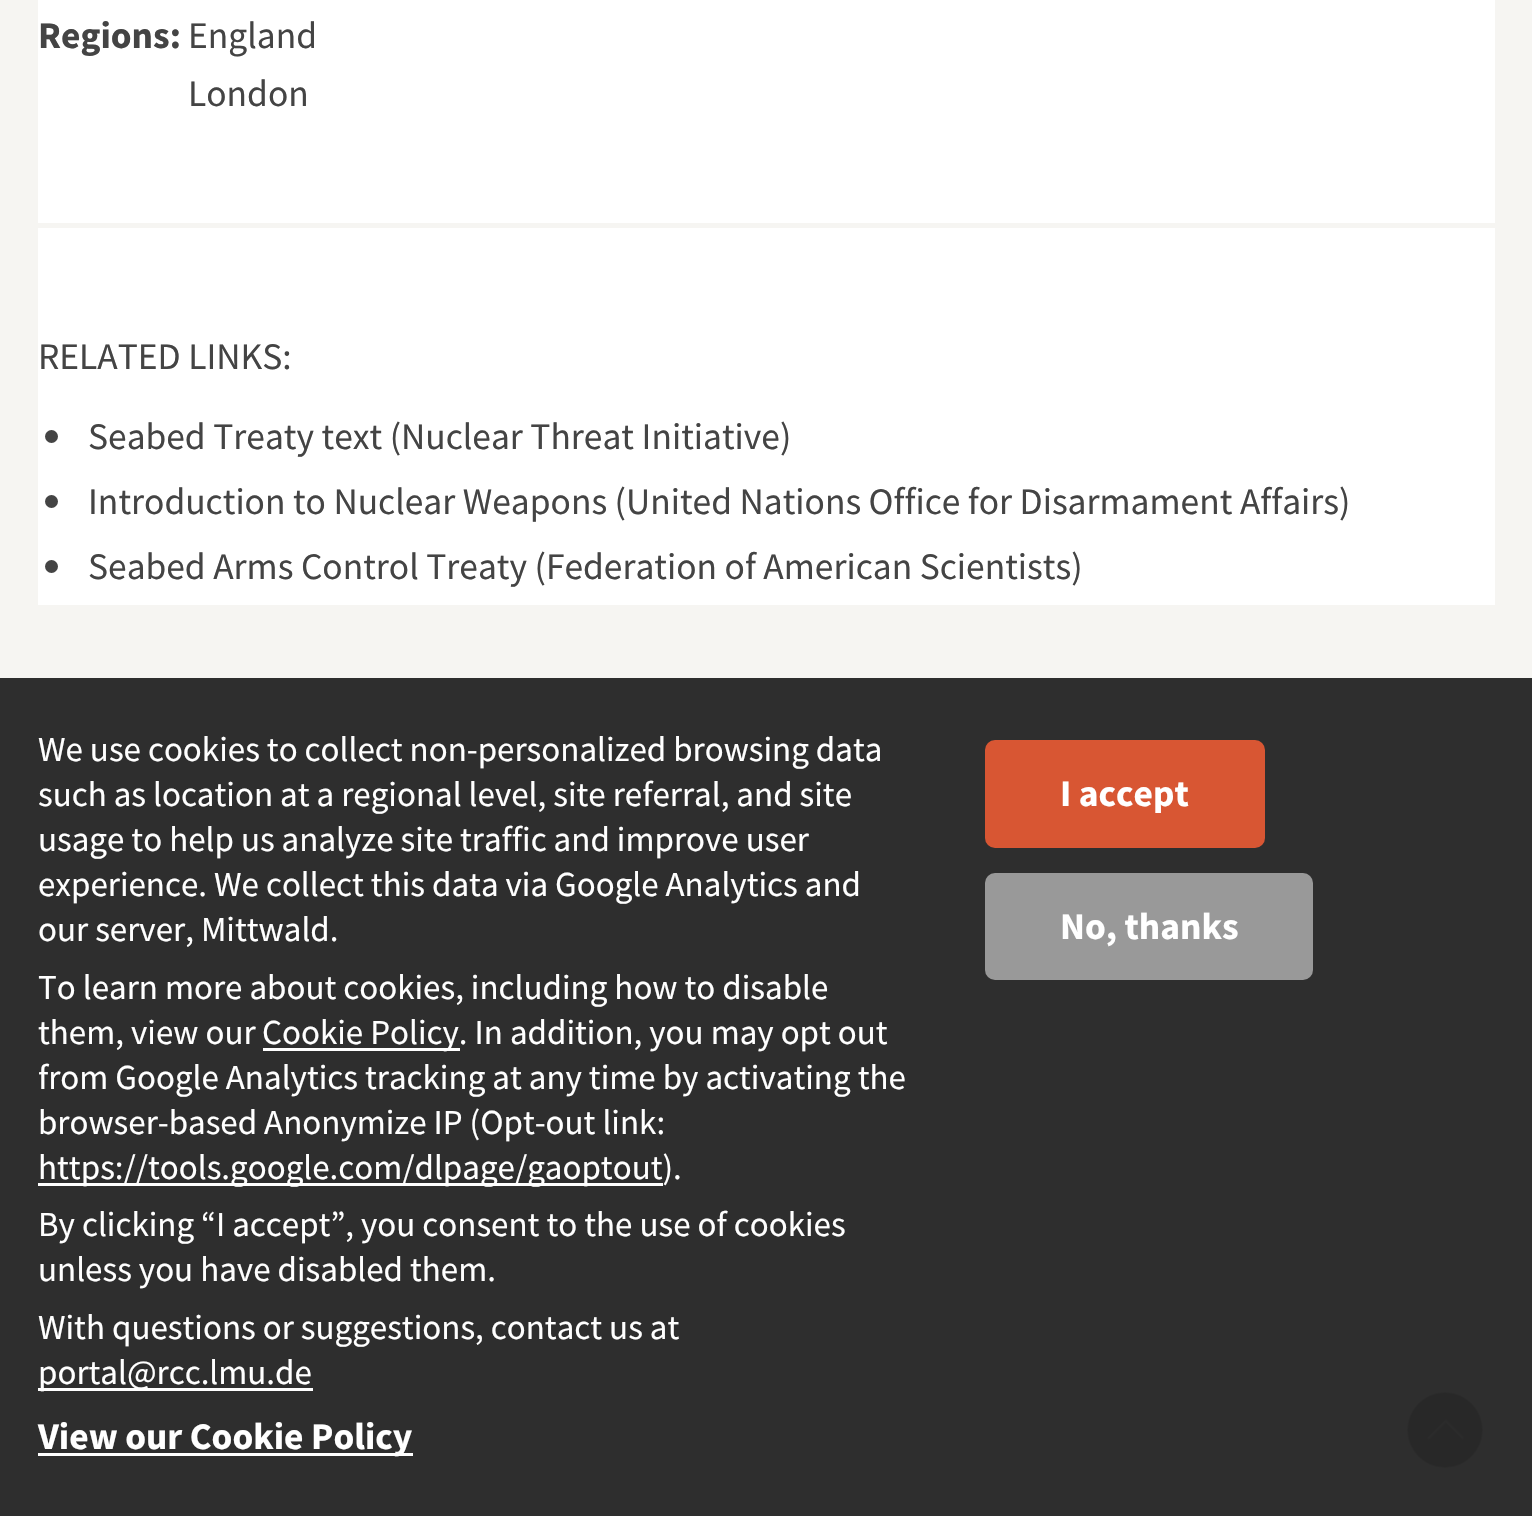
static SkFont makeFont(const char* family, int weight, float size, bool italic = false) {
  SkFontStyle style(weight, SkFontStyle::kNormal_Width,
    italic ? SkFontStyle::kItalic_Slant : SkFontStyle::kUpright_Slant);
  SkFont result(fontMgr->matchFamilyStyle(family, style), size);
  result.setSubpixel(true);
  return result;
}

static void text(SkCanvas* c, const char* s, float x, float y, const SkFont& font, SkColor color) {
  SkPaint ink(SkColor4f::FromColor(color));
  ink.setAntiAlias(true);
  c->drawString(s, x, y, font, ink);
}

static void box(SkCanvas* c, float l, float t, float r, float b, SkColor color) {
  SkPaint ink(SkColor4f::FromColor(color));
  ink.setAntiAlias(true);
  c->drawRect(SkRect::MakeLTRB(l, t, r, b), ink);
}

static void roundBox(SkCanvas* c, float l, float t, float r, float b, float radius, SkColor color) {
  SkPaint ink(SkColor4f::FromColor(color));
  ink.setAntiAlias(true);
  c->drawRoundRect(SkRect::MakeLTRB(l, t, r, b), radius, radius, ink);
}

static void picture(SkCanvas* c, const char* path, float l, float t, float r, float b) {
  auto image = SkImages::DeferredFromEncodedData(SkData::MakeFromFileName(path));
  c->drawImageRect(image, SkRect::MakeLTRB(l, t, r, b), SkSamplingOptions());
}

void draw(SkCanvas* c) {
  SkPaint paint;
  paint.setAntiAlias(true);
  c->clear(0xfff6f5f2);
  box(c, 38, 0, 1495, 605, 0xffffffff);
  SkFont face1 = makeFont("Source Sans Pro", 700, 37.5f);
  text(c, "Regions:", 38, 48, face1, 0xff444444);
  SkFont face2 = makeFont("Source Sans Pro", 400, 37.5f);
  text(c, "England", 188, 48, face2, 0xff444444);
  text(c, "London", 188, 106, face2, 0xff444444);
  box(c, 38, 223, 1495, 228, 0xfff6f5f2);
  text(c, "RELATED LINKS:", 38, 369, face2, 0xff444444);
  paint.setColor(0xff444444);
  c->drawCircle(51.5f, 436.5f, 6.5f, paint);
  text(c, "Seabed Treaty text (Nuclear Threat Initiative)", 88, 449, face2, 0xff444444);
  c->drawCircle(51.5f, 501.5f, 6.5f, paint);
  text(c, "Introduction to Nuclear Weapons (United Nations Office for Disarmament Affairs)", 88, 514, face2, 0xff444444);
  c->drawCircle(51.5f, 566.5f, 6.5f, paint);
  text(c, "Seabed Arms Control Treaty (Federation of American Scientists)", 88, 579, face2, 0xff444444);
  box(c, 38, 745, 1495, 1115, 0xffffffff);
  box(c, 38, 955, 1495, 960, 0xfff6f5f2);
  box(c, 38, 1310, 1495, 1516, 0xffffffff);
  picture(c, "img_01.png", 1407, 1392, 1483, 1468);
  box(c, 0, 678, 1532, 1516, 0xf5252525);
  SkFont face3 = makeFont("Source Sans Pro", 400, 35);
  text(c, "We use cookies to collect non-personalized browsing data", 38, 761, face3, 0xffffffff);
  text(c, "such as location at a regional level, site referral, and site", 38, 806, face3, 0xffffffff);
  text(c, "usage to help us analyze site traffic and improve user", 38, 851, face3, 0xffffffff);
  text(c, "experience. We collect this data via Google Analytics and", 38, 896, face3, 0xffffffff);
  text(c, "our server, Mittwald.", 38, 941, face3, 0xffffffff);
  text(c, "To learn more about cookies, including how to disable", 38, 999, face3, 0xffffffff);
  text(c, "them, view our", 38, 1044, face3, 0xffffffff);
  box(c, 263, 1048, 460, 1051, 0xffffffff);
  text(c, "Cookie Policy. In addition, you may opt out", 262, 1044, face3, 0xffffffff);
  text(c, "from Google Analytics tracking at any time by activating the", 38, 1089, face3, 0xffffffff);
  text(c, "browser-based Anonymize IP (Opt-out link:", 38, 1134, face3, 0xffffffff);
  box(c, 38, 1183, 663, 1186, 0xffffffff);
  text(c, "https://tools.google.com/dlpage/gaoptout).", 38, 1179, face3, 0xffffffff);
  text(c, "By clicking “I accept”, you consent to the use of cookies", 38, 1236, face3, 0xffffffff);
  text(c, "unless you have disabled them.", 38, 1281, face3, 0xffffffff);
  text(c, "With questions or suggestions, contact us at", 38, 1339, face3, 0xffffffff);
  box(c, 38, 1388, 313, 1391, 0xffffffff);
  text(c, "portal@rcc.lmu.de", 38, 1384, face3, 0xffffffff);
  box(c, 38, 1453, 413, 1456, 0xffffffff);
  text(c, "View our Cookie Policy", 38, 1449, face1, 0xffffffff);
  roundBox(c, 985, 740, 1265, 848, 10, 0xffd85633);
  text(c, "I accept", 1060, 806, face1, 0xffffffff);
  roundBox(c, 985, 873, 1313, 980, 10, 0xff999999);
  text(c, "No, thanks", 1060, 939, face1, 0xffffffff);
}
